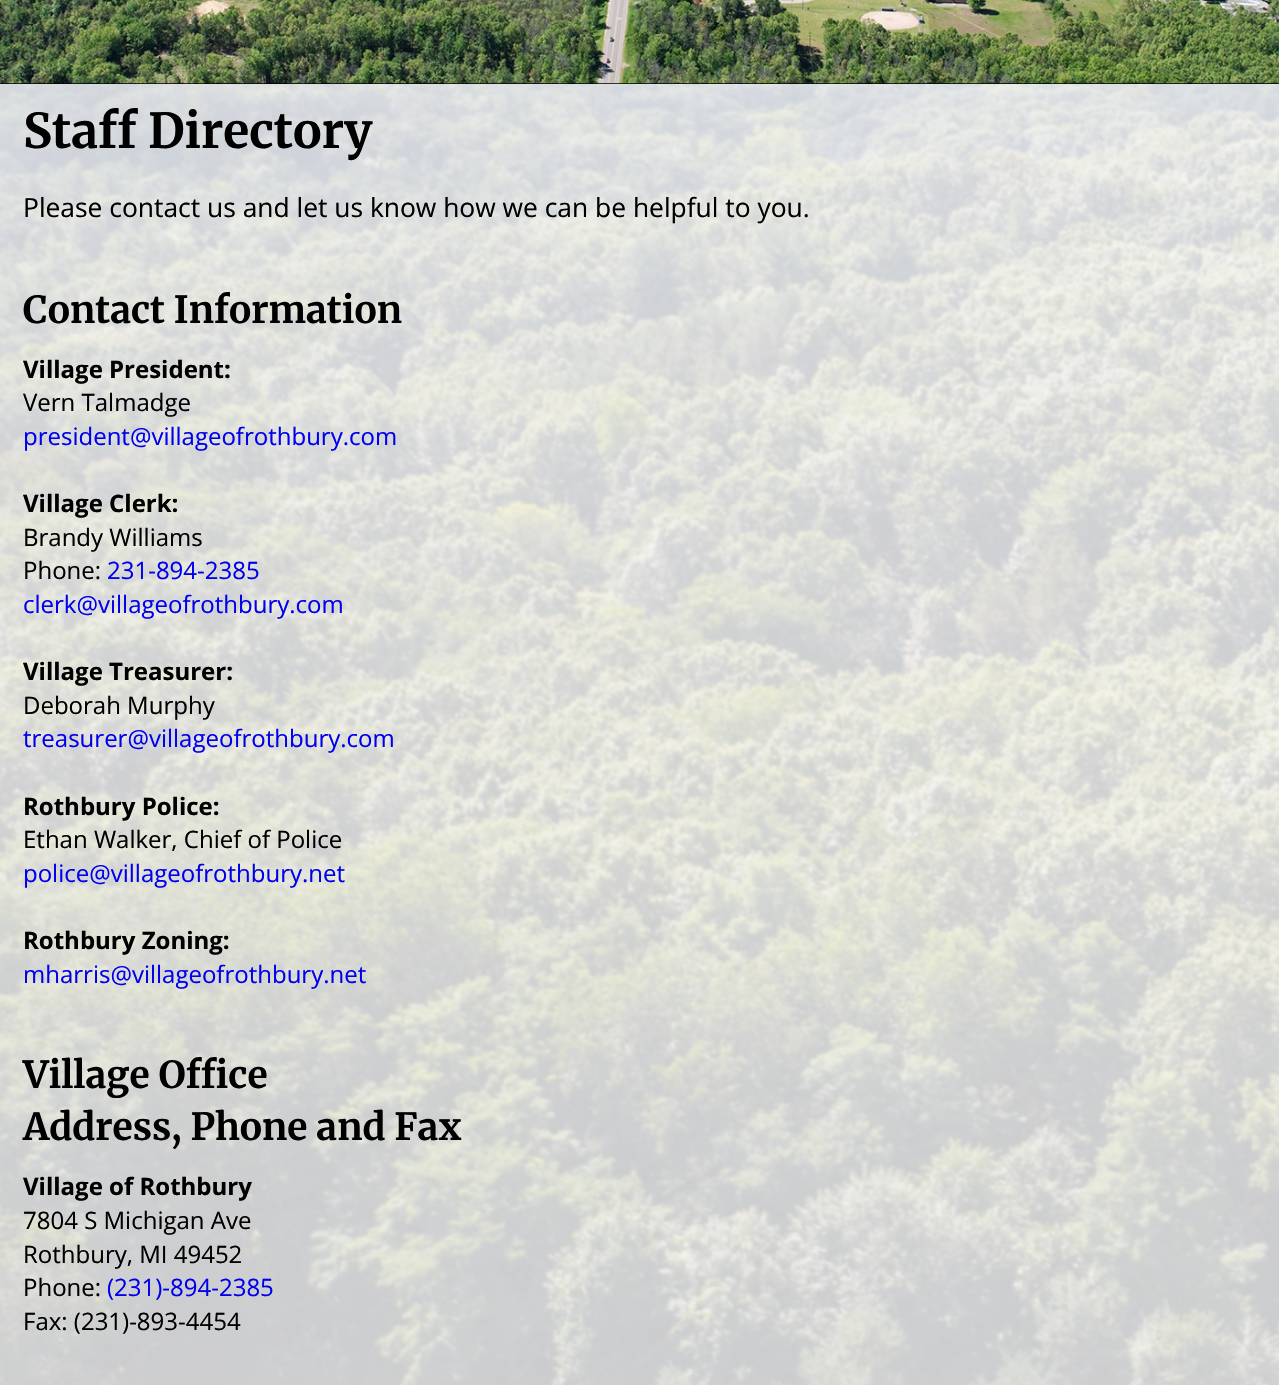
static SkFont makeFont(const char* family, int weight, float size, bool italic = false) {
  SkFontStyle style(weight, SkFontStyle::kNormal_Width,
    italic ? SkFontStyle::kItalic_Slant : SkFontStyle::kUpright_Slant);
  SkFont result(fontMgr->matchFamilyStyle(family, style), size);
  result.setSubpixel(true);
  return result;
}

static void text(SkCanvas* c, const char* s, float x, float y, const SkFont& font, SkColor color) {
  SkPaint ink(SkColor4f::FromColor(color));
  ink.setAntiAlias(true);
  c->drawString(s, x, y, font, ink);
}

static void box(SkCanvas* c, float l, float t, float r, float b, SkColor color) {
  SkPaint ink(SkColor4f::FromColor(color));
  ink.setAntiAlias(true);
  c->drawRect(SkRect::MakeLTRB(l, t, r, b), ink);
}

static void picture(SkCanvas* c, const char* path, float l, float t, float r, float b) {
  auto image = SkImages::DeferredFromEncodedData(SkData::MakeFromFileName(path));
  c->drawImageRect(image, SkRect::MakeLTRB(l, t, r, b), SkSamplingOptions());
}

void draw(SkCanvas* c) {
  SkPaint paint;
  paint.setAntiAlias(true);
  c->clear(0xffffffff);
  picture(c, "img_01.png", 0, 84, 1279, 1385);
  box(c, 0, 83, 1279, 84, 0xff000000);
  picture(c, "img_02.png", 0, 0, 1279, 84);
  SkFont face1 = makeFont("Merriweather", 300, 48);
  text(c, "Staff Directory", 23, 148, face1, 0xff000000);
  SkFont face2 = makeFont("Open Sans", 400, 26.4f);
  text(c, "Please contact us and let us know how we can be helpful to you.", 23, 217, face2, 0xff000000);
  SkFont face3 = makeFont("Merriweather", 300, 37.25f);
  text(c, "Contact Information", 23, 323, face3, 0xff000000);
  SkFont face4 = makeFont("Open Sans", 700, 24);
  text(c, "Village President:", 23, 378, face4, 0xff000000);
  SkFont face5 = makeFont("Open Sans", 400, 24);
  text(c, "Vern Talmadge", 23, 411, face5, 0xff000000);
  text(c, "president@villageofrothbury.com", 23, 445, face5, 0xff0000ee);
  text(c, "Village Clerk:", 23, 512, face4, 0xff000000);
  text(c, "Brandy Williams", 23, 546, face5, 0xff000000);
  text(c, "Phone:", 23, 579, face5, 0xff000000);
  text(c, "231-894-2385", 107, 579, face5, 0xff0000ee);
  text(c, "clerk@villageofrothbury.com", 23, 613, face5, 0xff0000ee);
  text(c, "Village Treasurer:", 23, 680, face4, 0xff000000);
  text(c, "Deborah Murphy", 23, 714, face5, 0xff000000);
  text(c, "treasurer@villageofrothbury.com", 23, 747, face5, 0xff0000ee);
  text(c, "Rothbury Police:", 23, 815, face4, 0xff000000);
  text(c, "Ethan Walker, Chief of Police", 23, 848, face5, 0xff000000);
  text(c, "police@villageofrothbury.net", 23, 882, face5, 0xff0000ee);
  text(c, "Rothbury Zoning:", 23, 949, face4, 0xff000000);
  text(c, "mharris@villageofrothbury.net", 23, 983, face5, 0xff0000ee);
  text(c, "Village Office", 23, 1088, face3, 0xff000000);
  text(c, "Address, Phone and Fax", 23, 1140, face3, 0xff000000);
  text(c, "Village of Rothbury", 23, 1195, face4, 0xff000000);
  text(c, "7804 S Michigan Ave", 23, 1229, face5, 0xff000000);
  text(c, "Rothbury, MI 49452", 23, 1263, face5, 0xff000000);
  text(c, "Phone:", 23, 1296, face5, 0xff000000);
  text(c, "(231)-894-2385", 107, 1296, face5, 0xff0000ee);
  text(c, "Fax: (231)-893-4454", 23, 1330, face5, 0xff000000);
}
